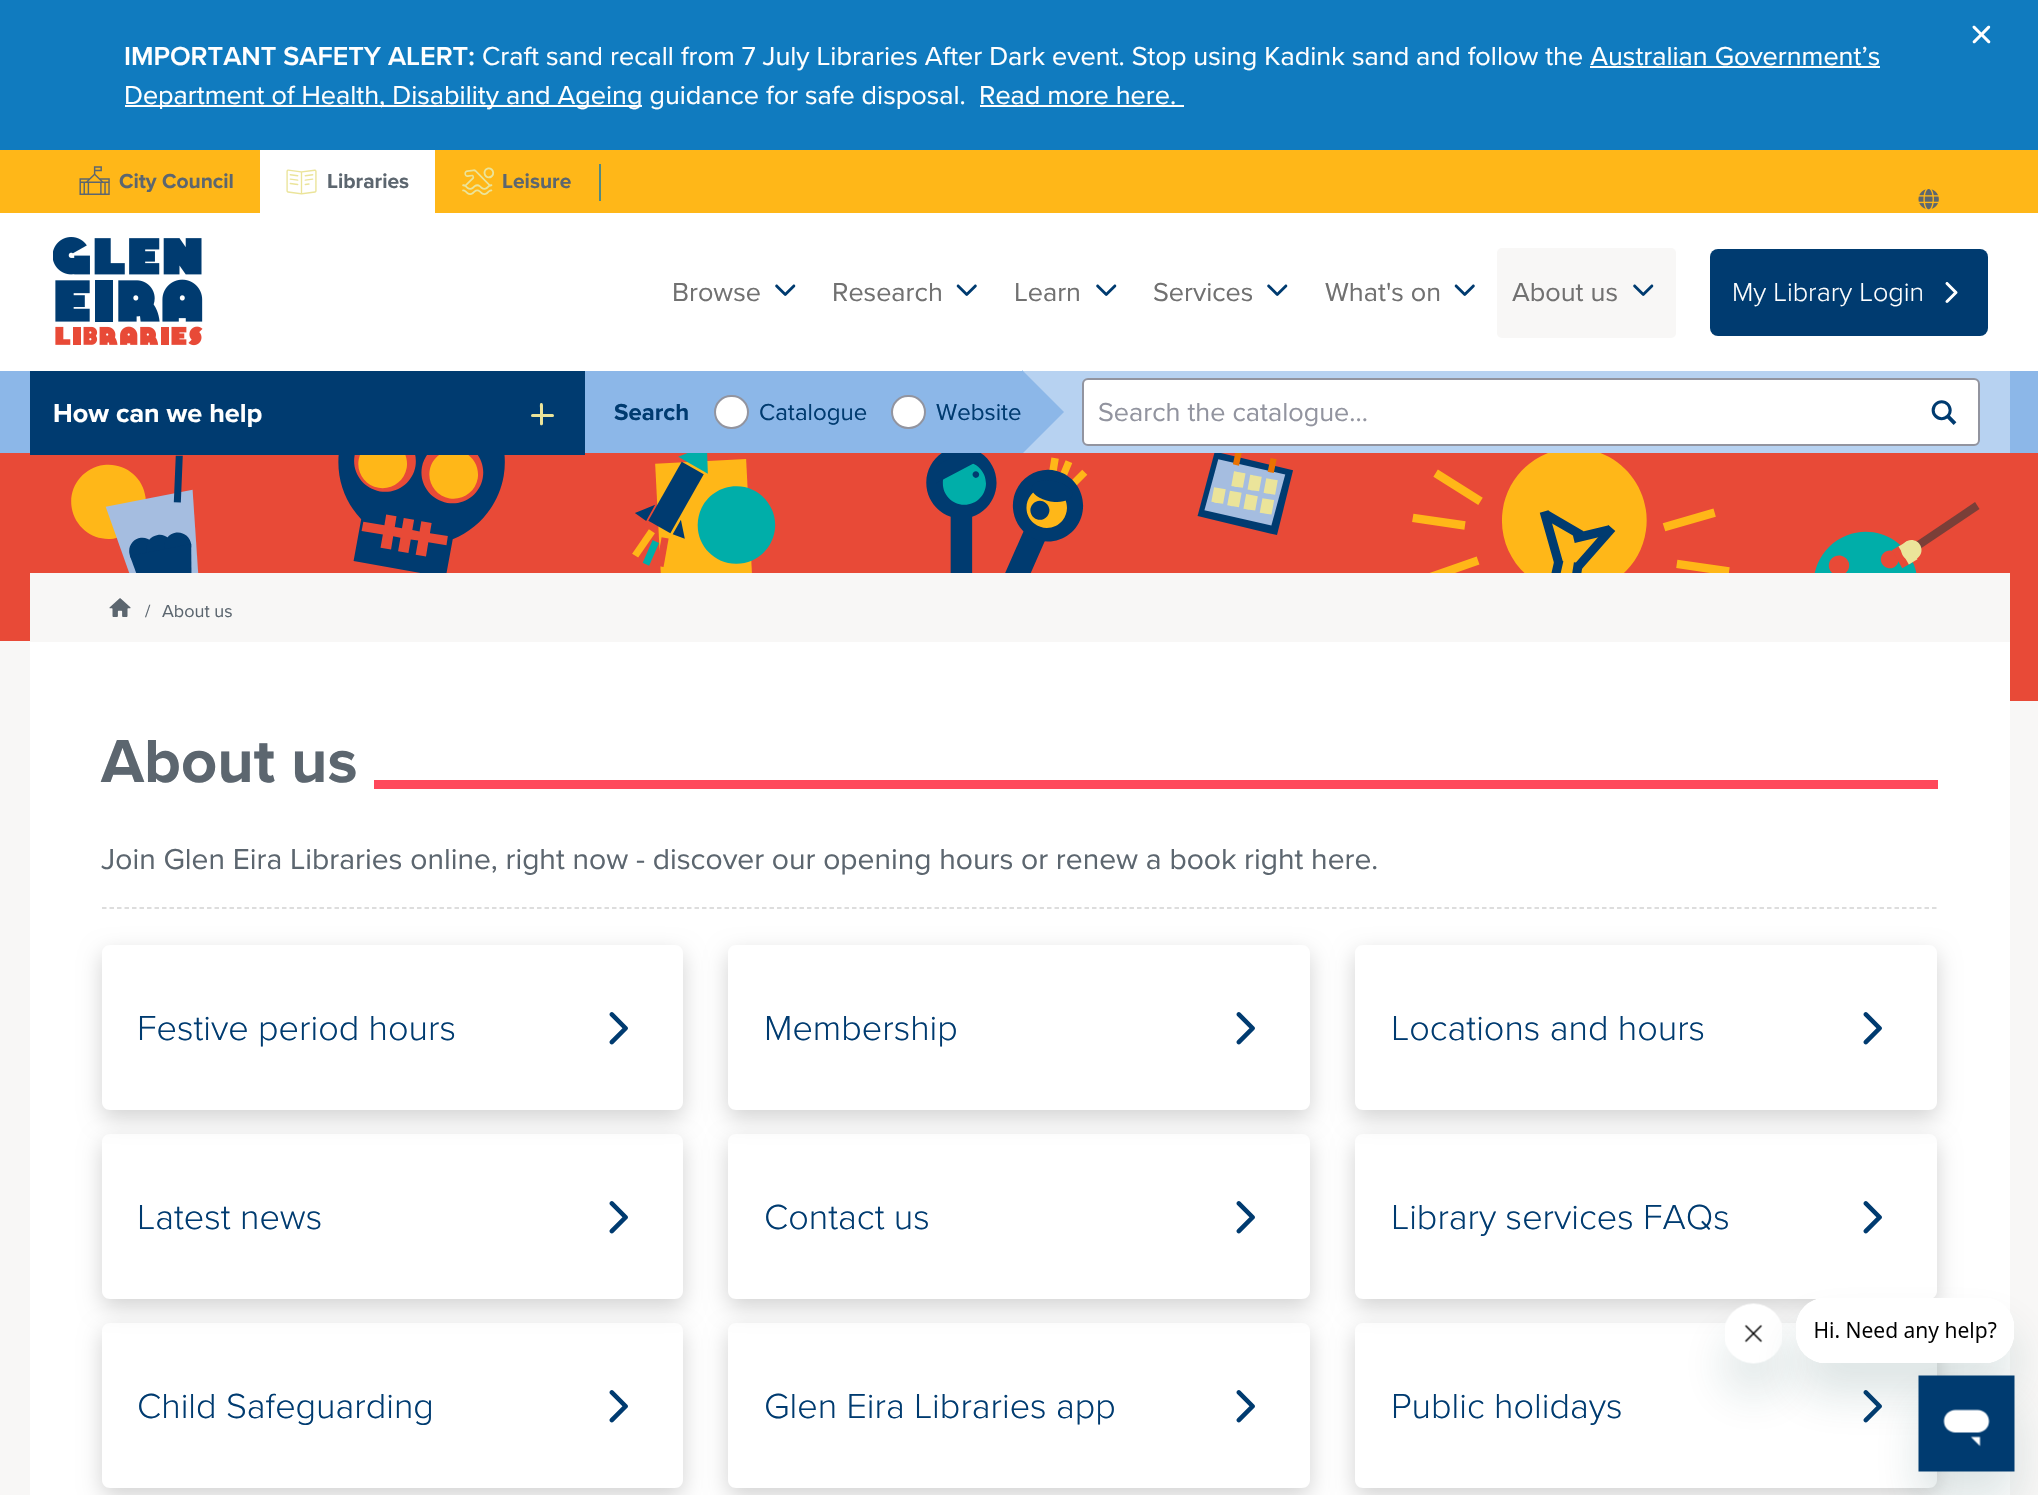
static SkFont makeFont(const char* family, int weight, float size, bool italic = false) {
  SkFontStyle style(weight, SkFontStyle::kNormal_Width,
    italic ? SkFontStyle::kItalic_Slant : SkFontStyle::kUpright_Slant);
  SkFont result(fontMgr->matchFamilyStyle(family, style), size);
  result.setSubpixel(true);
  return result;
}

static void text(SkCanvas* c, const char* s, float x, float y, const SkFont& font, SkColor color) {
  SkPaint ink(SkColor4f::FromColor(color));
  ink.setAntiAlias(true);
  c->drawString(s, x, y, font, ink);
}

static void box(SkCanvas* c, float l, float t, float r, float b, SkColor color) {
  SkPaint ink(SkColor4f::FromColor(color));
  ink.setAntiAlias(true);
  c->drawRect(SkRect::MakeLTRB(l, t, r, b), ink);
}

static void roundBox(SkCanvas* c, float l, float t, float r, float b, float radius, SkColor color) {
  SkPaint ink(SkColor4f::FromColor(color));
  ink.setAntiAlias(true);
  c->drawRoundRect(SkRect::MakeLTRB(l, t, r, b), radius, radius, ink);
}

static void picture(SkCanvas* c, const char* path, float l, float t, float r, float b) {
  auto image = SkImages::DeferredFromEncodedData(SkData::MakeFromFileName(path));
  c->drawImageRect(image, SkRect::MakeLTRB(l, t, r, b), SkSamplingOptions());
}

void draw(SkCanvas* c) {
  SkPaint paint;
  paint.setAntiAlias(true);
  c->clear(0xfff8f7f6);
  box(c, 0, 0, 2038, 150, 0xff107bbf);
  picture(c, "img_01.png", 1972, 25, 1991, 44);
  SkFont face1 = makeFont("Proxima Nova", 600, 27);
  text(c, "IMPORTANT SAFETY ALERT:", 124, 65, face1, 0xffffffff);
  SkFont face2 = makeFont("Proxima Nova", 400, 27);
  text(c, "Craft sand recall from 7 July Libraries After Dark event. Stop using Kadink sand and follow the Australian Government’s", 482, 65, face2, 0xffffffff);
  box(c, 1590, 66, 1880, 68, 0xffffffff);
  box(c, 125, 105, 642, 107, 0xffffffff);
  text(c, "Department of Health, Disability and Ageing guidance for safe disposal.", 124, 104, face2, 0xffffffff);
  text(c, "Read more here.", 979, 104, face2, 0xffffffff);
  box(c, 980, 105, 1184, 107, 0xffffffff);
  box(c, 0, 150, 2038, 213, 0xffffb718);
  picture(c, "img_02.png", 79, 166, 110, 195);
  SkFont face3 = makeFont("Proxima Nova", 700, 21);
  text(c, "City Council", 119, 188, face3, 0xff5c666f);
  box(c, 260, 150, 435, 213, 0xffffffff);
  picture(c, "img_03.png", 286, 169, 317, 195);
  text(c, "Libraries", 327, 188, face3, 0xff5c666f);
  picture(c, "img_04.png", 462, 167, 495, 195);
  text(c, "Leisure", 502, 188, face3, 0xff5c666f);
  box(c, 599, 164, 601, 201, 0xff528a82);
  picture(c, "img_05.png", 1918, 189, 1939, 210);
  box(c, 0, 213, 2038, 371, 0xffffffff);
  picture(c, "img_06.png", 53, 237, 203, 346);
  text(c, "Browse", 672, 301, face2, 0xff717171);
  picture(c, "img_07.png", 775, 284, 796, 296);
  text(c, "Research", 832, 301, face2, 0xff717171);
  picture(c, "img_08.png", 956, 284, 977, 296);
  text(c, "Learn", 1014, 301, face2, 0xff717171);
  picture(c, "img_07.png", 1096, 284, 1117, 296);
  text(c, "Services", 1153, 301, face2, 0xff717171);
  picture(c, "img_09.png", 1267, 284, 1288, 296);
  text(c, "What's on", 1325, 301, face2, 0xff717171);
  picture(c, "img_08.png", 1454, 284, 1475, 296);
  roundBox(c, 1497, 248, 1676, 338, 5, 0xfff8f7f6);
  text(c, "About us", 1512, 301, face2, 0xff717171);
  picture(c, "img_10.png", 1633, 284, 1654, 296);
  roundBox(c, 1710, 249, 1988, 336, 8, 0xff003b70);
  SkFont face4 = makeFont("Proxima Nova", 300, 27);
  text(c, "My Library Login", 1732, 301, face4, 0xffffffff);
  picture(c, "img_11.png", 1945, 282, 1958, 303);
  box(c, 0, 371, 2038, 453, 0xff8cb7e8);
  box(c, 1023, 371, 2010, 453, 0xffb7d2f1);
  paint.setColor(0xff8cb7e8);
  c->drawPath(SkPathBuilder().moveTo(1022, 454).lineTo(1022, 370).lineTo(1064, 412).close().detach(), paint);
  box(c, 0, 453, 2038, 701, 0xffe84a37);
  picture(c, "img_13.png", 71, 453, 1980, 573);
  box(c, 30, 371, 585, 455, 0xff003b70);
  SkFont face5 = makeFont("Proxima Nova", 700, 27);
  text(c, "How can we help", 53, 422, face5, 0xffffffff);
  roundBox(c, 531, 414, 554, 417, 1.5f, 0xffebe49a);
  paint.setColor(0xffebe49a);
  c->drawPath(SkPathBuilder().moveTo(540, 424).lineTo(540, 407.5f).cubicTo(540, 406.5f, 539.5f, 403, 541, 403).cubicTo(543.5f, 402.5f, 543, 406.5f, 543, 407.5f).lineTo(543, 424).cubicTo(542.5f, 426, 540, 425.5f, 540, 424).close().detach(), paint);
  SkFont face6 = makeFont("Proxima Nova", 700, 24);
  text(c, "Search", 614, 420, face6, 0xff003b70);
  paint.setColor(0xffffffff);
  c->drawRoundRect(SkRect::MakeLTRB(715, 396, 748, 428), 16, 16, paint);
  paint.setStyle(SkPaint::kStroke_Style);
  paint.setStrokeWidth(2);
  paint.setColor(0xff92949f);
  c->drawRoundRect(SkRect::MakeLTRB(715, 396, 748, 428), 16, 16, paint);
  SkFont face7 = makeFont("Proxima Nova", 400, 24);
  text(c, "Catalogue", 759, 420, face7, 0xff003b70);
  paint.setStyle(SkPaint::kFill_Style);
  paint.setColor(0xffffffff);
  c->drawRoundRect(SkRect::MakeLTRB(892, 396, 925, 428), 16, 16, paint);
  paint.setStyle(SkPaint::kStroke_Style);
  paint.setColor(0xff92949f);
  c->drawRoundRect(SkRect::MakeLTRB(892, 396, 925, 428), 16, 16, paint);
  text(c, "Website", 936, 420, face7, 0xff003b70);
  paint.setStyle(SkPaint::kFill_Style);
  paint.setColor(0xffffffff);
  c->drawRoundRect(SkRect::MakeLTRB(1083, 379, 1979, 445), 5, 5, paint);
  paint.setStyle(SkPaint::kStroke_Style);
  paint.setColor(0xff92949f);
  c->drawRoundRect(SkRect::MakeLTRB(1083, 379, 1979, 445), 5, 5, paint);
  text(c, "Search the catalogue...", 1098, 421, face2, 0xff92949f);
  picture(c, "img_12.png", 1931, 400, 1957, 425);
  box(c, 0, 641, 30, 701, 0xfff8f7f6);
  box(c, 30, 642, 2010, 1495, 0xffffffff);
  box(c, 30, 573, 2010, 642, 0xfff8f7f6);
  picture(c, "img_14.png", 109, 598, 131, 617);
  SkFont face8 = makeFont("Proxima Nova", 400, 18);
  text(c, "/", 145, 617, face8, 0xff5c666f);
  text(c, "About us", 162, 617, face8, 0xff5c666f);
  SkFont face9 = makeFont("Proxima Nova", 700, 63);
  text(c, "About us", 101, 782, face9, 0xff5c666f);
  box(c, 374, 780, 1938, 789, 0xffff485b);
  paint.setStrokeWidth(1.5f);
  paint.setColor(0xffd2d2d2);
  paint.setPathEffect(SkDashPathEffect::Make({{4.5f, 3}}, 0));
  c->drawPath(SkPathBuilder().moveTo(102, 908).lineTo(1938, 908).detach(), paint);
  paint.setPathEffect(nullptr);
  SkFont face10 = makeFont("Proxima Nova", 400, 30);
  text(c, "Join Glen Eira Libraries online, right now - discover our opening hours or renew a book right here.", 101, 869, face10, 0xff5c666f);
  c->save();
  c->clipPath(SkPathBuilder(SkPathFillType::kEvenOdd).moveTo(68, 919).lineTo(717, 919).lineTo(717, 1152).lineTo(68, 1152).close().moveTo(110, 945).lineTo(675, 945).cubicTo(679.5f, 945, 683, 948.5f, 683, 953).lineTo(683, 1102).cubicTo(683, 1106.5f, 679.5f, 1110, 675, 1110).lineTo(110, 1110).cubicTo(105.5f, 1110, 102, 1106.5f, 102, 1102).lineTo(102, 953).cubicTo(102, 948.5f, 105.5f, 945, 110, 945).close().detach(), true);
  paint.setStyle(SkPaint::kFill_Style);
  paint.setMaskFilter(SkMaskFilter::MakeBlur(kNormal_SkBlurStyle, 11));
  c->drawRoundRect(SkRect::MakeLTRB(102, 953, 683, 1118), 8, 8, paint);
  paint.setMaskFilter(nullptr);
  c->restore();
  SkFont face11 = makeFont("Proxima Nova", 300, 36);
  text(c, "Festive period hours", 137, 1040, face11, 0xff003b70);
  picture(c, "img_15.png", 609, 1012, 628, 1045);
  c->save();
  c->clipPath(SkPathBuilder(SkPathFillType::kEvenOdd).moveTo(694, 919).lineTo(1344, 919).lineTo(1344, 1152).lineTo(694, 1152).close().moveTo(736, 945).lineTo(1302, 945).cubicTo(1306.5f, 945, 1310, 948.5f, 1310, 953).lineTo(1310, 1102).cubicTo(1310, 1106.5f, 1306.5f, 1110, 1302, 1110).lineTo(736, 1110).cubicTo(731.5f, 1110, 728, 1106.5f, 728, 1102).lineTo(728, 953).cubicTo(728, 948.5f, 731.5f, 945, 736, 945).close().detach(), true);
  paint.setMaskFilter(SkMaskFilter::MakeBlur(kNormal_SkBlurStyle, 11));
  c->drawRoundRect(SkRect::MakeLTRB(728, 953, 1310, 1118), 8, 8, paint);
  paint.setMaskFilter(nullptr);
  c->restore();
  text(c, "Membership", 764, 1040, face11, 0xff003b70);
  picture(c, "img_16.png", 1236, 1012, 1255, 1045);
  c->save();
  c->clipPath(SkPathBuilder(SkPathFillType::kEvenOdd).moveTo(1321, 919).lineTo(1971, 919).lineTo(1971, 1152).lineTo(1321, 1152).close().moveTo(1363, 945).lineTo(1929, 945).cubicTo(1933.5f, 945, 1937, 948.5f, 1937, 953).lineTo(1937, 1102).cubicTo(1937, 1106.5f, 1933.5f, 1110, 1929, 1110).lineTo(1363, 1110).cubicTo(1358.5f, 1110, 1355, 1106.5f, 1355, 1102).lineTo(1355, 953).cubicTo(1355, 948.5f, 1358.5f, 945, 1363, 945).close().detach(), true);
  paint.setMaskFilter(SkMaskFilter::MakeBlur(kNormal_SkBlurStyle, 11));
  c->drawRoundRect(SkRect::MakeLTRB(1355, 953, 1937, 1118), 8, 8, paint);
  paint.setMaskFilter(nullptr);
  c->restore();
  text(c, "Locations and hours", 1391, 1040, face11, 0xff003b70);
  picture(c, "img_15.png", 1863, 1012, 1882, 1045);
  c->save();
  c->clipPath(SkPathBuilder(SkPathFillType::kEvenOdd).moveTo(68, 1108).lineTo(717, 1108).lineTo(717, 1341).lineTo(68, 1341).close().moveTo(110, 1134).lineTo(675, 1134).cubicTo(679.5f, 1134, 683, 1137.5f, 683, 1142).lineTo(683, 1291).cubicTo(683, 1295.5f, 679.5f, 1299, 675, 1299).lineTo(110, 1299).cubicTo(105.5f, 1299, 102, 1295.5f, 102, 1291).lineTo(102, 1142).cubicTo(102, 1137.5f, 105.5f, 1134, 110, 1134).close().detach(), true);
  paint.setMaskFilter(SkMaskFilter::MakeBlur(kNormal_SkBlurStyle, 11));
  c->drawRoundRect(SkRect::MakeLTRB(102, 1142, 683, 1307), 8, 8, paint);
  paint.setMaskFilter(nullptr);
  c->restore();
  text(c, "Latest news", 137, 1229, face11, 0xff003b70);
  picture(c, "img_17.png", 609, 1201, 628, 1234);
  c->save();
  c->clipPath(SkPathBuilder(SkPathFillType::kEvenOdd).moveTo(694, 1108).lineTo(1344, 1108).lineTo(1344, 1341).lineTo(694, 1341).close().moveTo(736, 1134).lineTo(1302, 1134).cubicTo(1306.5f, 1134, 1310, 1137.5f, 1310, 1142).lineTo(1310, 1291).cubicTo(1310, 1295.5f, 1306.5f, 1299, 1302, 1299).lineTo(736, 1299).cubicTo(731.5f, 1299, 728, 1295.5f, 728, 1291).lineTo(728, 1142).cubicTo(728, 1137.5f, 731.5f, 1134, 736, 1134).close().detach(), true);
  paint.setMaskFilter(SkMaskFilter::MakeBlur(kNormal_SkBlurStyle, 11));
  c->drawRoundRect(SkRect::MakeLTRB(728, 1142, 1310, 1307), 8, 8, paint);
  paint.setMaskFilter(nullptr);
  c->restore();
  text(c, "Contact us", 764, 1229, face11, 0xff003b70);
  picture(c, "img_17.png", 1236, 1201, 1255, 1234);
  c->save();
  c->clipPath(SkPathBuilder(SkPathFillType::kEvenOdd).moveTo(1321, 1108).lineTo(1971, 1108).lineTo(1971, 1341).lineTo(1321, 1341).close().moveTo(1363, 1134).lineTo(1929, 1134).cubicTo(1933.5f, 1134, 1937, 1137.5f, 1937, 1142).lineTo(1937, 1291).cubicTo(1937, 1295.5f, 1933.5f, 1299, 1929, 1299).lineTo(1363, 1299).cubicTo(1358.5f, 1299, 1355, 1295.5f, 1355, 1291).lineTo(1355, 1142).cubicTo(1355, 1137.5f, 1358.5f, 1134, 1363, 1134).close().detach(), true);
  paint.setMaskFilter(SkMaskFilter::MakeBlur(kNormal_SkBlurStyle, 11));
  c->drawRoundRect(SkRect::MakeLTRB(1355, 1142, 1937, 1307), 8, 8, paint);
  paint.setMaskFilter(nullptr);
  c->restore();
  text(c, "Library services FAQs", 1391, 1229, face11, 0xff003b70);
  picture(c, "img_17.png", 1863, 1201, 1882, 1234);
  c->save();
  c->clipPath(SkPathBuilder(SkPathFillType::kEvenOdd).moveTo(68, 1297).lineTo(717, 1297).lineTo(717, 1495).lineTo(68, 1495).close().moveTo(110, 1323).lineTo(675, 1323).cubicTo(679.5f, 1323, 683, 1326.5f, 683, 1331).lineTo(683, 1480).cubicTo(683, 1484.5f, 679.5f, 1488, 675, 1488).lineTo(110, 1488).cubicTo(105.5f, 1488, 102, 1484.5f, 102, 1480).lineTo(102, 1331).cubicTo(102, 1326.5f, 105.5f, 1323, 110, 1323).close().detach(), true);
  paint.setMaskFilter(SkMaskFilter::MakeBlur(kNormal_SkBlurStyle, 11));
  c->drawRoundRect(SkRect::MakeLTRB(102, 1331, 683, 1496), 8, 8, paint);
  paint.setMaskFilter(nullptr);
  c->restore();
  text(c, "Child Safeguarding", 137, 1418, face11, 0xff003b70);
  picture(c, "img_17.png", 609, 1390, 628, 1423);
  c->save();
  c->clipPath(SkPathBuilder(SkPathFillType::kEvenOdd).moveTo(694, 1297).lineTo(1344, 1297).lineTo(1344, 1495).lineTo(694, 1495).close().moveTo(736, 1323).lineTo(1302, 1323).cubicTo(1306.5f, 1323, 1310, 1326.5f, 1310, 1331).lineTo(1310, 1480).cubicTo(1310, 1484.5f, 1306.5f, 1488, 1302, 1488).lineTo(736, 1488).cubicTo(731.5f, 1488, 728, 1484.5f, 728, 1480).lineTo(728, 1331).cubicTo(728, 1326.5f, 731.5f, 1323, 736, 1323).close().detach(), true);
  paint.setMaskFilter(SkMaskFilter::MakeBlur(kNormal_SkBlurStyle, 11));
  c->drawRoundRect(SkRect::MakeLTRB(728, 1331, 1310, 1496), 8, 8, paint);
  paint.setMaskFilter(nullptr);
  c->restore();
  text(c, "Glen Eira Libraries app", 764, 1418, face11, 0xff003b70);
  picture(c, "img_17.png", 1236, 1390, 1255, 1423);
  c->save();
  c->clipPath(SkPathBuilder(SkPathFillType::kEvenOdd).moveTo(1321, 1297).lineTo(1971, 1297).lineTo(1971, 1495).lineTo(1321, 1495).close().moveTo(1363, 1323).lineTo(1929, 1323).cubicTo(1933.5f, 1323, 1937, 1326.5f, 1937, 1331).lineTo(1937, 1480).cubicTo(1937, 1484.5f, 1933.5f, 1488, 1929, 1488).lineTo(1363, 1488).cubicTo(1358.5f, 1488, 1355, 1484.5f, 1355, 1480).lineTo(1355, 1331).cubicTo(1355, 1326.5f, 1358.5f, 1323, 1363, 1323).close().detach(), true);
  paint.setMaskFilter(SkMaskFilter::MakeBlur(kNormal_SkBlurStyle, 11));
  c->drawRoundRect(SkRect::MakeLTRB(1355, 1331, 1937, 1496), 8, 8, paint);
  paint.setMaskFilter(nullptr);
  c->restore();
  text(c, "Public holidays", 1391, 1418, face11, 0xff003b70);
  picture(c, "img_17.png", 1863, 1390, 1882, 1423);
  paint.setColor(0x2617494d);
  paint.setMaskFilter(SkMaskFilter::MakeBlur(kNormal_SkBlurStyle, 22.5f));
  c->drawRoundRect(SkRect::MakeLTRB(1724, 1334, 1784, 1394), 30, 30, paint);
  paint.setMaskFilter(nullptr);
  picture(c, "img_19.png", 1725, 1303, 1782, 1364);
  paint.setMaskFilter(SkMaskFilter::MakeBlur(kNormal_SkBlurStyle, 22.5f));
  c->drawRoundRect(SkRect::MakeLTRB(1796, 1328, 2015, 1394), 30, 30, paint);
  paint.setMaskFilter(nullptr);
  picture(c, "img_18.png", 1796, 1298, 2014, 1363);
  paint.setMaskFilter(SkMaskFilter::MakeBlur(kNormal_SkBlurStyle, 22.5f));
  c->drawRect(SkRect::MakeLTRB(1919, 1406, 2015, 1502), paint);
  paint.setMaskFilter(nullptr);
  picture(c, "img_20.png", 1918, 1375, 2015, 1472);
}
